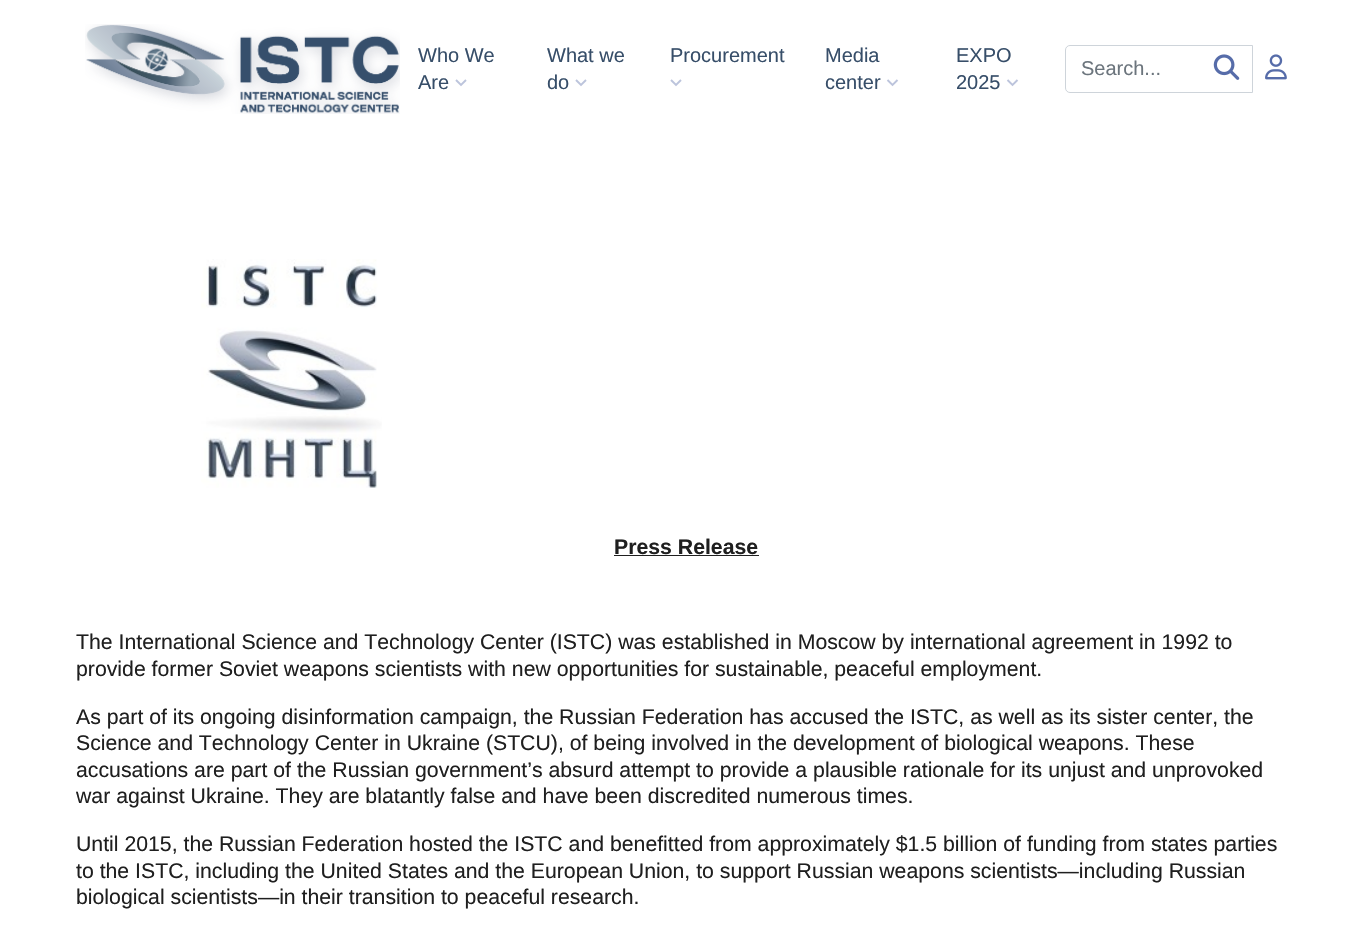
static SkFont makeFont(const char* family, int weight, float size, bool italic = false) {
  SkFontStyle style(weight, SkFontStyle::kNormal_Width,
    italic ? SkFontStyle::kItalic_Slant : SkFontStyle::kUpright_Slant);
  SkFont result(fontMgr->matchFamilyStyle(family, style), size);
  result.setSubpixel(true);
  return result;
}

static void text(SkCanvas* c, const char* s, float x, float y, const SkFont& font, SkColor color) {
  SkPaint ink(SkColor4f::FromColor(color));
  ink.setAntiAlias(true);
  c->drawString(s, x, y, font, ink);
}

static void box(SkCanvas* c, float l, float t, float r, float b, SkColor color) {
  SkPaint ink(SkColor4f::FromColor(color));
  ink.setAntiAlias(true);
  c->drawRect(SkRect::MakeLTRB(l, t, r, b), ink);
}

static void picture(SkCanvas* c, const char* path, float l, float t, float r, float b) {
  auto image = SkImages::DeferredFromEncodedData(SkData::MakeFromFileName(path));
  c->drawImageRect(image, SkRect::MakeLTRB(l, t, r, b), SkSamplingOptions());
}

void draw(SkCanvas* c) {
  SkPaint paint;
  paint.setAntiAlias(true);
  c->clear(0xffffffff);
  picture(c, "img_01.png", 85, 24, 400, 114);
  SkFont face1 = makeFont("Liberation Sans", 400, 20);
  text(c, "Who We", 418, 62, face1, 0xff374e69);
  text(c, "Are", 418, 89, face1, 0xff374e69);
  paint.setStyle(SkPaint::kStroke_Style);
  paint.setStrokeWidth(1.9f);
  paint.setColor(0xffbcc4dc);
  c->drawPath(SkPathBuilder().moveTo(456, 80).lineTo(461, 85).lineTo(466, 80).detach(), paint);
  text(c, "What we", 547, 62, face1, 0xff374e69);
  text(c, "do", 547, 89, face1, 0xff374e69);
  c->drawPath(SkPathBuilder().moveTo(576, 80).lineTo(581, 85).lineTo(586, 80).detach(), paint);
  text(c, "Procurement", 670, 62, face1, 0xff374e69);
  c->drawPath(SkPathBuilder().moveTo(671, 80).lineTo(676, 85).lineTo(681, 80).detach(), paint);
  text(c, "Media", 825, 62, face1, 0xff374e69);
  text(c, "center", 825, 89, face1, 0xff374e69);
  c->drawPath(SkPathBuilder().moveTo(887.5f, 80).lineTo(892.5f, 85).lineTo(897.5f, 80).detach(), paint);
  text(c, "EXPO", 956, 62, face1, 0xff374e69);
  text(c, "2025", 956, 89, face1, 0xff374e69);
  c->drawPath(SkPathBuilder().moveTo(1007.5f, 80).lineTo(1012.5f, 85).lineTo(1017.5f, 80).detach(), paint);
  paint.setStrokeWidth(1);
  paint.setColor(0xffced4da);
  c->drawPath(SkPathBuilder().moveTo(1070, 45.5f).lineTo(1252.5f, 45.5f).lineTo(1252.5f, 92.5f).lineTo(1070, 92.5f).cubicTo(1067.5f, 92.5f, 1065.5f, 90.5f, 1065.5f, 88).lineTo(1065.5f, 50).cubicTo(1065.5f, 47.5f, 1067.5f, 45.5f, 1070, 45.5f).close().detach(), paint);
  text(c, "Search...", 1081, 75, face1, 0xff6c757d);
  picture(c, "img_02.png", 1213, 54, 1240, 80);
  picture(c, "img_03.png", 1265, 54, 1287, 80);
  picture(c, "img_04.png", 201, 259, 382, 488);
  SkFont face2 = makeFont("Liberation Sans", 700, 21.25f);
  text(c, "Press Release", 614, 554, face2, 0xff1f1f1f);
  box(c, 614, 555, 759, 556, 0xff1f1f1f);
  SkFont face3 = makeFont("Liberation Sans", 400, 21.25f);
  text(c, "The International Science and Technology Center (ISTC) was established in Moscow by international agreement in 1992 to", 76, 649, face3, 0xff1f1f1f);
  text(c, "provide former Soviet weapons scientists with new opportunities for sustainable, peaceful employment.", 76, 676, face3, 0xff1f1f1f);
  text(c, "As part of its ongoing disinformation campaign, the Russian Federation has accused the ISTC, as well as its sister center, the", 76, 724, face3, 0xff1f1f1f);
  text(c, "Science and Technology Center in Ukraine (STCU), of being involved in the development of biological weapons. These", 76, 750, face3, 0xff1f1f1f);
  text(c, "accusations are part of the Russian government’s absurd attempt to provide a plausible rationale for its unjust and unprovoked", 76, 777, face3, 0xff1f1f1f);
  text(c, "war against Ukraine. They are blatantly false and have been discredited numerous times.", 76, 803, face3, 0xff1f1f1f);
  text(c, "Until 2015, the Russian Federation hosted the ISTC and benefitted from approximately $1.5 billion of funding from states parties", 76, 851, face3, 0xff1f1f1f);
  text(c, "to the ISTC, including the United States and the European Union, to support Russian weapons scientists—including Russian", 76, 878, face3, 0xff1f1f1f);
  text(c, "biological scientists—in their transition to peaceful research.", 76, 904, face3, 0xff1f1f1f);
}
